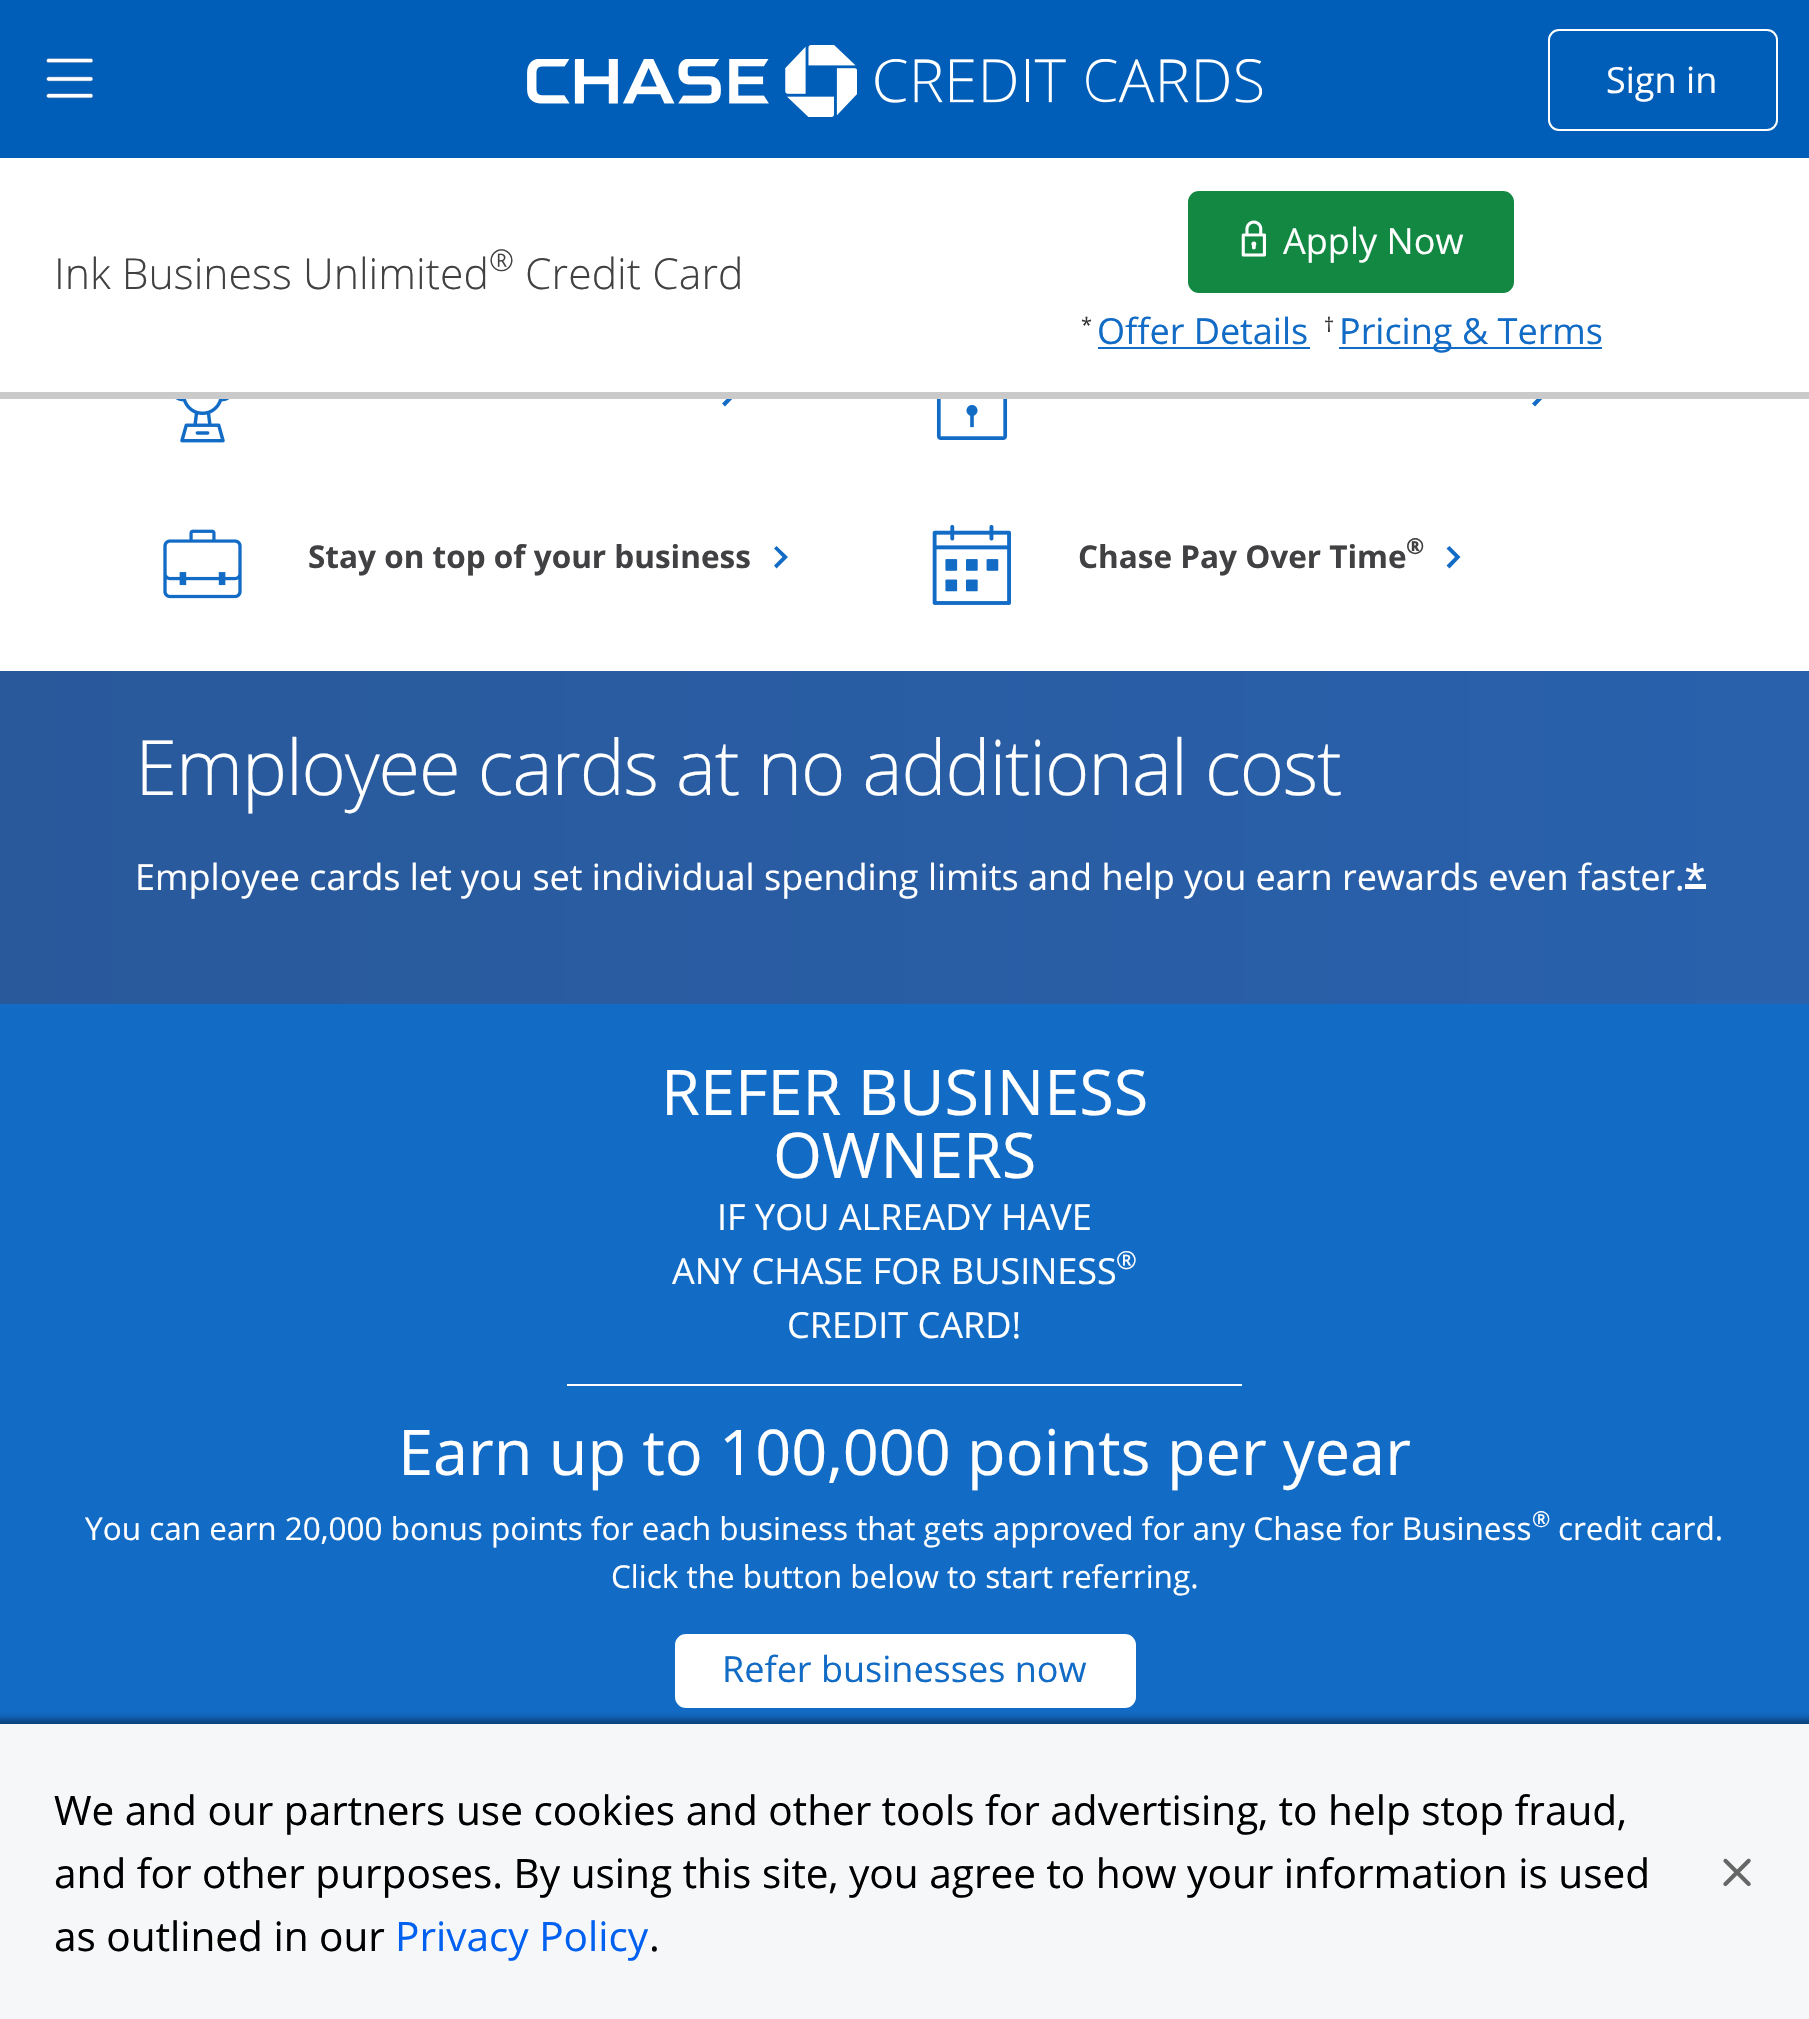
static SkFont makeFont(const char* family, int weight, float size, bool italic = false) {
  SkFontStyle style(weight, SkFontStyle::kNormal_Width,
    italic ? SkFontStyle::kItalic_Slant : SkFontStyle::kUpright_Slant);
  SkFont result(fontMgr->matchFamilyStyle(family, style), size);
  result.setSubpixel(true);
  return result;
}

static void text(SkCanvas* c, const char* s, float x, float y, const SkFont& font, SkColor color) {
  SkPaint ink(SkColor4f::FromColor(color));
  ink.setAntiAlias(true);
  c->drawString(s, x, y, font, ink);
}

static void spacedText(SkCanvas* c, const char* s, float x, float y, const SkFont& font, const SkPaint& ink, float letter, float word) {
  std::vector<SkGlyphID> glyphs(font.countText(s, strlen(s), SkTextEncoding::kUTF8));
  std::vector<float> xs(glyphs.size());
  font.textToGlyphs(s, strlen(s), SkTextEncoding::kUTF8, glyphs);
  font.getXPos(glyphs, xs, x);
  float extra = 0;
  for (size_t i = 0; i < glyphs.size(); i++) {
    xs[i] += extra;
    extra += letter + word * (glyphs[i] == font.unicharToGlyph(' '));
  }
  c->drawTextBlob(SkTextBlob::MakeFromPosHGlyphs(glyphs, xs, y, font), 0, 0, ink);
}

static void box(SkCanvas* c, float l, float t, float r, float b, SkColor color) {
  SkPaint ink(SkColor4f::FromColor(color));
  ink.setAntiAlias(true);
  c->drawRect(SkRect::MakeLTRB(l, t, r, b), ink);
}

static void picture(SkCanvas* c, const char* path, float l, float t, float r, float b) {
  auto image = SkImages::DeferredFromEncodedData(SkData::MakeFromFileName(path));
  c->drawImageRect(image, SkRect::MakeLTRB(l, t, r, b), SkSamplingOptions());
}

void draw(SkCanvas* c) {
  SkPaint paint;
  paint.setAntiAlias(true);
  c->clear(0xffffffff);
  box(c, 0, 0, 1809, 158, 0xff005eb8);
  picture(c, "img_01.png", 46, 58, 94, 99);
  picture(c, "img_02.png", 527, 59, 769, 104);
  picture(c, "img_03.png", 785, 45, 857, 117);
  picture(c, "img_04.png", 875, 59, 1262, 103);
  paint.setStyle(SkPaint::kStroke_Style);
  paint.setStrokeWidth(2);
  paint.setColor(0xffffffff);
  c->drawRoundRect(SkRect::MakeLTRB(1549, 30, 1777, 130), 10, 10, paint);
  SkFont face1 = makeFont("Open Sans", 400, 36);
  text(c, "Sign in", 1606, 93, face1, 0xffffffff);
  paint.setStyle(SkPaint::kFill_Style);
  paint.setColor(0xff126bc5);
  c->drawPath(SkPathBuilder().moveTo(725, 384).lineTo(736, 395).lineTo(725, 406.5f).lineTo(722, 403.5f).lineTo(730.5f, 395).lineTo(722, 386.5f).close().detach(), paint);
  c->drawPath(SkPathBuilder().moveTo(1535, 384).lineTo(1546, 395).lineTo(1535, 406.5f).lineTo(1532, 403.5f).lineTo(1540.5f, 395).lineTo(1532, 386.5f).close().detach(), paint);
  box(c, 722, 384, 1543, 392, 0xffffffff);
  box(c, 0, 392, 1809, 399, 0xffcacaca);
  SkFont face2 = makeFont("Open Sans", 300, 42.75f);
  text(c, "Ink Business Unlimited", 54, 289, face2, 0xff414042);
  SkFont face3 = makeFont("Open Sans", 300, 30);
  text(c, "®", 489, 271, face3, 0xff414042);
  text(c, "Credit Card", 525, 289, face2, 0xff414042);
  paint.setColor(0xff128842);
  c->drawRoundRect(SkRect::MakeLTRB(1189, 192, 1513, 292), 10, 10, paint);
  paint.setStyle(SkPaint::kStroke_Style);
  c->drawRoundRect(SkRect::MakeLTRB(1189, 192, 1513, 292), 10, 10, paint);
  picture(c, "img_05.png", 1241, 220, 1266, 257);
  text(c, "Apply Now", 1283, 254, face1, 0xffffffff);
  SkFont face4 = makeFont("Open Sans", 400, 20);
  text(c, "*", 1081, 332, face4, 0xff333333);
  text(c, "Offer Details", 1097, 344, face1, 0xff126bc5);
  box(c, 1098, 347, 1310, 349, 0xff126bc5);
  text(c, "†", 1324, 332, face4, 0xff333333);
  box(c, 1339, 347, 1602, 349, 0xff126bc5);
  text(c, "Pricing & Terms", 1339, 344, face1, 0xff126bc5);
  picture(c, "img_06.png", 175, 399, 230, 443);
  picture(c, "img_07.png", 936, 399, 1008, 440);
  picture(c, "img_08.png", 163, 529, 242, 599);
  SkFont face5 = makeFont("Open Sans", 700, 31.5f);
  text(c, "Stay on top of your business", 308, 568, face5, 0xff414042);
  paint.setStyle(SkPaint::kFill_Style);
  paint.setColor(0xff126bc5);
  c->drawPath(SkPathBuilder().moveTo(776.5f, 546).lineTo(788, 557).lineTo(776.5f, 568.5f).lineTo(774, 565.5f).lineTo(782.5f, 557).lineTo(774, 548.5f).close().detach(), paint);
  picture(c, "img_09.png", 932, 524, 1011, 605);
  text(c, "Chase Pay Over Time", 1078, 568, face5, 0xff414042);
  SkFont face6 = makeFont("Open Sans", 700, 22);
  text(c, "®", 1406, 554, face6, 0xff414042);
  c->drawPath(SkPathBuilder().moveTo(1449.5f, 546).lineTo(1460.5f, 557).lineTo(1449.5f, 568.5f).lineTo(1446.5f, 565.5f).lineTo(1455, 557).lineTo(1446.5f, 548.5f).close().detach(), paint);
  {
    const SkColor colors[] = {0xff29599b, 0xff2961ac};
    const float stops[] = {0, 1};
    const SkPoint ends[] = {{0, 837}, {1809, 837}};
    paint.setShader(SkGradientShader::MakeLinear(ends, colors, stops, 2, SkTileMode::kClamp));
    paint.setAlpha(255);
  }
  c->drawRect(SkRect::MakeLTRB(0, 671, 1809, 1004), paint);
  SkFont face7 = makeFont("Open Sans", 300, 76.5f);
  paint.setShader(nullptr);
  paint.setColor(0xffffffff);
  spacedText(c, "Employee cards at no additional cost", 135, 795, face7, paint, -1.55f, 0);
  text(c, "Employee cards let you set individual spending limits and help you earn rewards even faster.", 135, 890, face1, 0xffffffff);
  SkFont face8 = makeFont("Liberation Sans", 400, 51);
  text(c, "*", 1685, 898, face8, 0xffffffff);
  box(c, 1685, 884, 1706, 889, 0xffffffff);
  box(c, 0, 1004, 1809, 1724, 0xff126bc5);
  box(c, 567, 1384, 1242, 1386, 0xffffffff);
  SkFont face9 = makeFont("Open Sans", 400, 63);
  text(c, "REFER BUSINESS", 661, 1115, face9, 0xffffffff);
  text(c, "OWNERS", 773, 1178, face9, 0xffffffff);
  text(c, "IF YOU ALREADY HAVE", 717, 1230, face1, 0xffffffff);
  text(c, "ANY CHASE FOR BUSINESS", 672, 1284, face1, 0xffffffff);
  SkFont face10 = makeFont("Open Sans", 400, 25);
  text(c, "®", 1116, 1269, face10, 0xffffffff);
  text(c, "CREDIT CARD!", 787, 1338, face1, 0xffffffff);
  text(c, "Earn up to 100,000 points per year", 398, 1475, face9, 0xffffffff);
  SkFont face11 = makeFont("Open Sans", 400, 31.5f);
  text(c, "You can earn 20,000 bonus points for each business that gets approved for any Chase for Business", 85, 1540, face11, 0xffffffff);
  SkFont face12 = makeFont("Open Sans", 400, 22);
  text(c, "®", 1532, 1527, face12, 0xffffffff);
  text(c, "credit card.", 1558, 1540, face11, 0xffffffff);
  text(c, "Click the button below to start referring.", 611, 1588, face11, 0xffffffff);
  c->drawRoundRect(SkRect::MakeLTRB(678.5f, 1637.5f, 1132.5f, 1704.5f), 7.5f, 7.5f, paint);
  paint.setStyle(SkPaint::kStroke_Style);
  paint.setStrokeWidth(7);
  c->drawRoundRect(SkRect::MakeLTRB(678.5f, 1637.5f, 1132.5f, 1704.5f), 7.5f, 7.5f, paint);
  text(c, "Refer businesses now", 722, 1682, face1, 0xff126bc5);
  paint.setStyle(SkPaint::kFill_Style);
  paint.setColor(0x66000000);
  paint.setMaskFilter(SkMaskFilter::MakeBlur(kNormal_SkBlurStyle, 3.5f));
  c->drawRect(SkRect::MakeLTRB(-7, 1719, 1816, 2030), paint);
  paint.setMaskFilter(nullptr);
  box(c, 0, 1724, 1809, 2019, 0xfff5f7f8);
  SkFont face13 = makeFont("Open Sans", 400, 40.5f);
  text(c, "We and our partners use cookies and other tools for advertising, to help stop fraud,", 54, 1825, face13, 0xff000000);
  text(c, "and for other purposes. By using this site, you agree to how your information is used", 54, 1888, face13, 0xff000000);
  text(c, "as outlined in our", 54, 1951, face13, 0xff000000);
  text(c, "Privacy Policy", 395, 1951, face13, 0xff0060f0);
  text(c, ".", 649, 1951, face13, 0xff000000);
  picture(c, "img_10.png", 1723, 1858, 1751, 1887);
}
